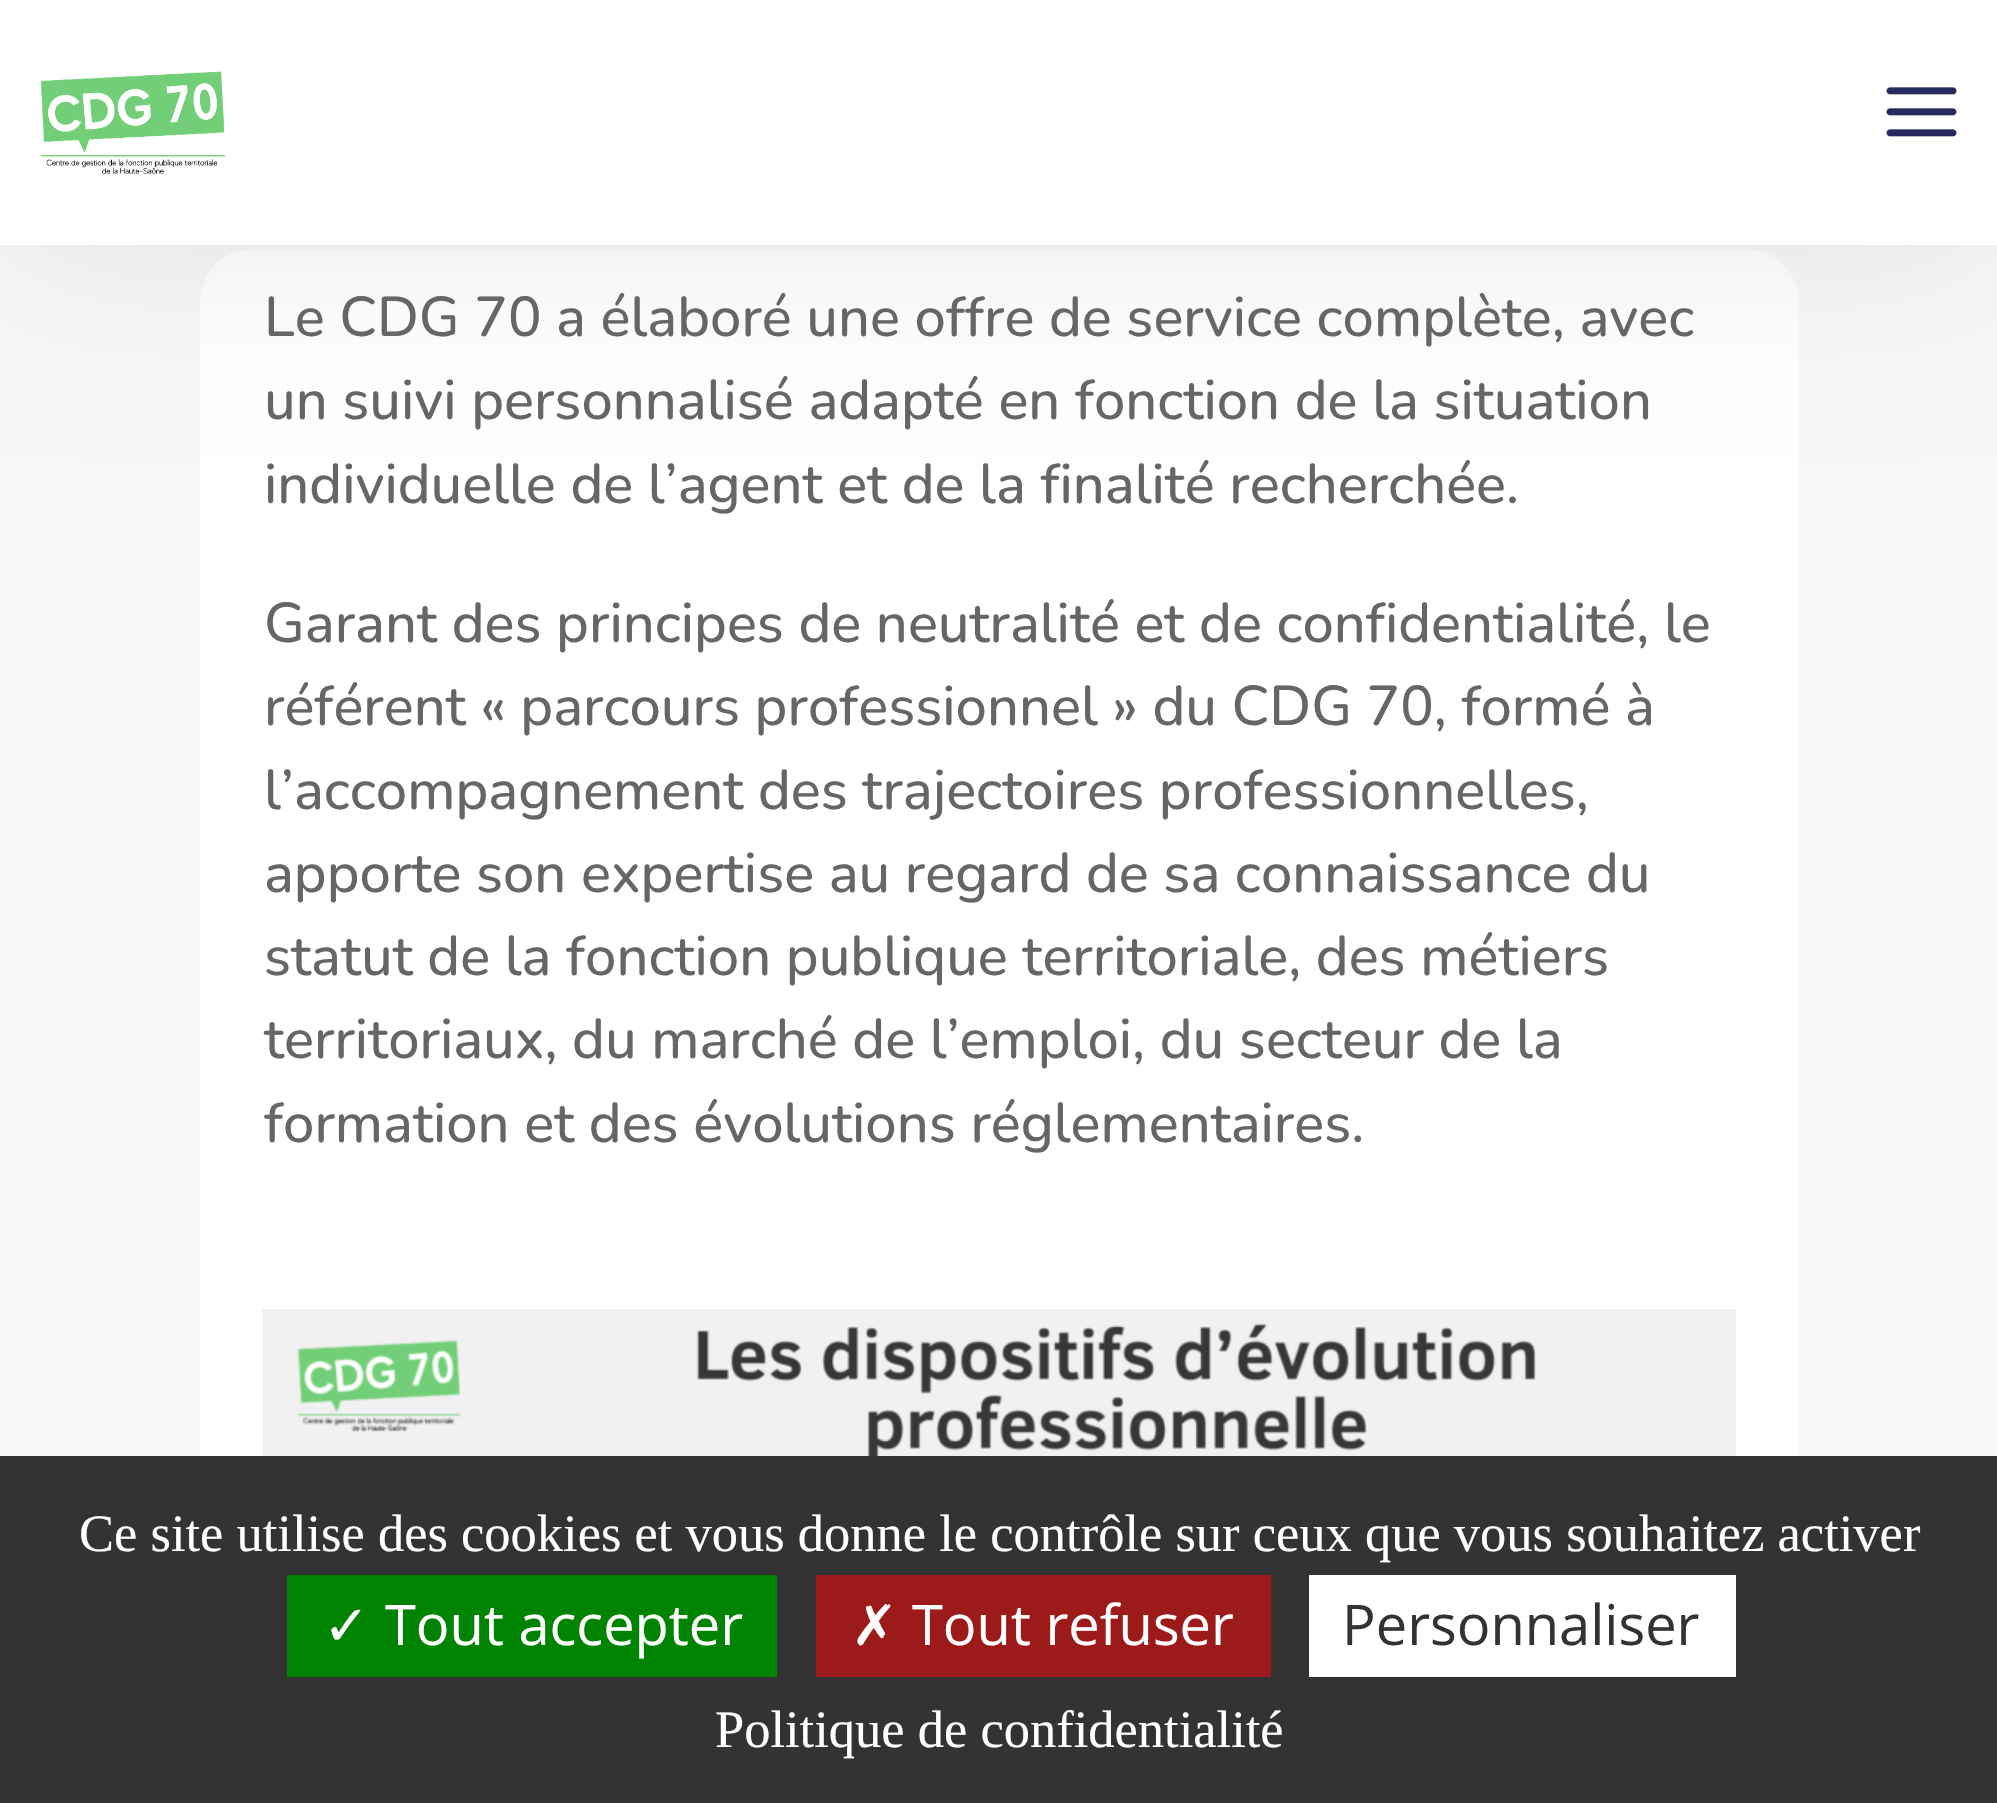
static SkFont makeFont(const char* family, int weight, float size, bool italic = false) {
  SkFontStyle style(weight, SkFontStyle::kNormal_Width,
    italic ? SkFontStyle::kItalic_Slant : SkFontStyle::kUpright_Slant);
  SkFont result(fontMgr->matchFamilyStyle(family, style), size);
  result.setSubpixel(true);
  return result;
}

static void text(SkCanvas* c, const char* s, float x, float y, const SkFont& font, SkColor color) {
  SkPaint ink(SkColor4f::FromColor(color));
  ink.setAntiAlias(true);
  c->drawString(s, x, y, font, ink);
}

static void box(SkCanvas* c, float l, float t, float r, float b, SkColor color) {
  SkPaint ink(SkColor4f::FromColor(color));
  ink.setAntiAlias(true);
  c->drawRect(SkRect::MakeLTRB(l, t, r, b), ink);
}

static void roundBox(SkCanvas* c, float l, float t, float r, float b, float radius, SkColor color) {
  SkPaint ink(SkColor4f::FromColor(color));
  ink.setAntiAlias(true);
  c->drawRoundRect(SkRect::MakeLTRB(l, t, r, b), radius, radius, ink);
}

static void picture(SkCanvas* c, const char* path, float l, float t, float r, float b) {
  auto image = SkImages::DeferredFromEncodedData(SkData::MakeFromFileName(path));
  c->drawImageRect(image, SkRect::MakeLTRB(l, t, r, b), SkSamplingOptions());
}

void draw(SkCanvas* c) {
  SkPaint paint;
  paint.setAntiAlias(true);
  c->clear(0xfff7f7f7);
  roundBox(c, 200, 249, 1799, 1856, 53, 0xffffffff);
  paint.setColor(0x14000000);
  paint.setMaskFilter(SkMaskFilter::MakeBlur(kNormal_SkBlurStyle, 87.5f));
  c->drawRect(SkRect::MakeLTRB(0, 7, 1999, 252), paint);
  paint.setMaskFilter(nullptr);
  box(c, 0, 0, 1997, 245, 0xffffffff);
  picture(c, "img_01.png", 41, 71, 225, 175);
  picture(c, "img_02.png", 1886, 87, 1957, 137);
  SkFont face1 = makeFont("Nunito", 500, 56);
  text(c, "Le CDG 70 a élaboré une offre de service complète, avec", 264, 336, face1, 0xff666666);
  text(c, "un suivi personnalisé adapté en fonction de la situation", 264, 419, face1, 0xff666666);
  text(c, "individuelle de l’agent et de la finalité recherchée.", 264, 503, face1, 0xff666666);
  text(c, "Garant des principes de neutralité et de confidentialité, le", 264, 642, face1, 0xff666666);
  text(c, "référent « parcours professionnel » du CDG 70, formé à", 264, 725, face1, 0xff666666);
  text(c, "l’accompagnement des trajectoires professionnelles,", 264, 809, face1, 0xff666666);
  text(c, "apporte son expertise au regard de sa connaissance du", 264, 892, face1, 0xff666666);
  text(c, "statut de la fonction publique territoriale, des métiers", 264, 975, face1, 0xff666666);
  text(c, "territoriaux, du marché de l’emploi, du secteur de la", 264, 1058, face1, 0xff666666);
  text(c, "formation et des évolutions réglementaires.", 264, 1142, face1, 0xff666666);
  picture(c, "img_03.png", 262, 1309, 1736, 1456);
  box(c, 0, 1456, 1997, 1803, 0xff333333);
  SkFont face2 = makeFont("Liberation Serif", 400, 52.5f);
  text(c, "Ce site utilise des cookies et vous donne le contrôle sur ceux que vous souhaitez activer", 79, 1551, face2, 0xffffffff);
  box(c, 287, 1575, 777, 1677, 0xff008300);
  SkFont face3 = makeFont("DejaVu Sans", 400, 56);
  text(c, "✓", 323, 1645, face3, 0xffffffff);
  SkFont face4 = makeFont("Open Sans", 400, 56);
  text(c, "Tout accepter", 385, 1645, face4, 0xffffffff);
  box(c, 816, 1575, 1271, 1677, 0xff9c1a1a);
  text(c, "✗", 851, 1645, face3, 0xffffffff);
  text(c, "Tout refuser", 912, 1645, face4, 0xffffffff);
  box(c, 1309, 1575, 1736, 1677, 0xffffffff);
  text(c, "Personnaliser", 1342, 1645, face4, 0xff333333);
  text(c, "Politique de confidentialité", 715, 1747, face2, 0xffffffff);
}
